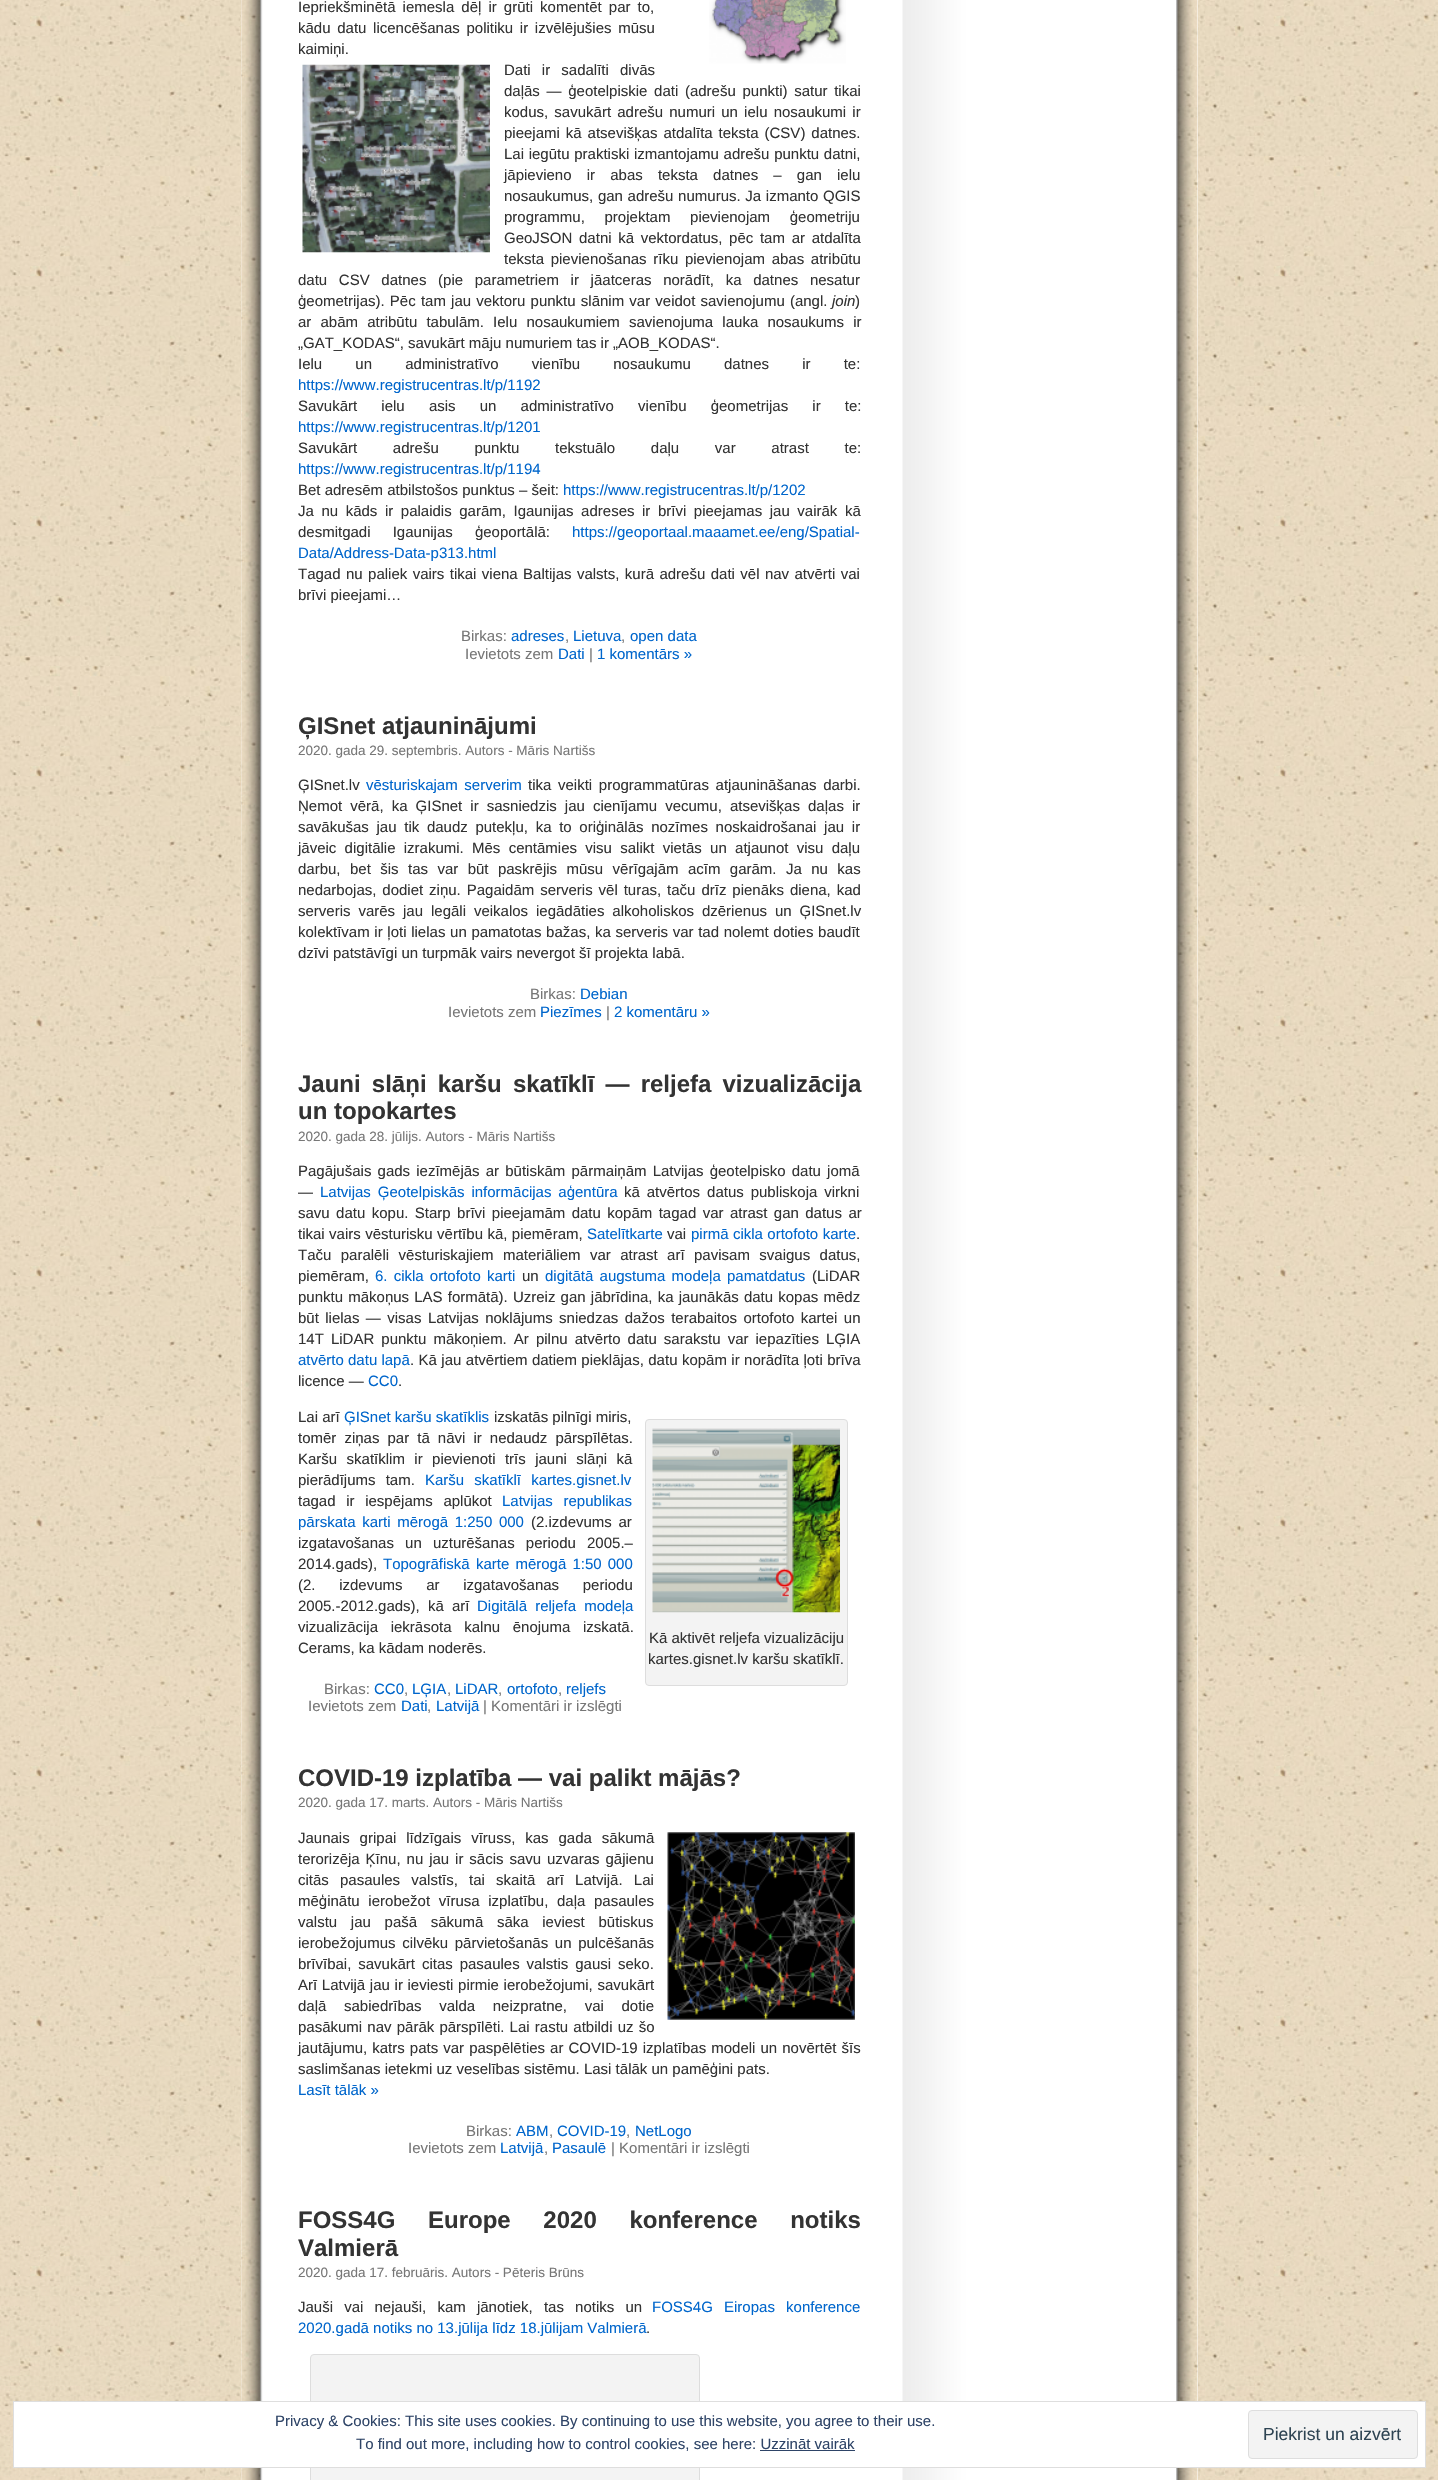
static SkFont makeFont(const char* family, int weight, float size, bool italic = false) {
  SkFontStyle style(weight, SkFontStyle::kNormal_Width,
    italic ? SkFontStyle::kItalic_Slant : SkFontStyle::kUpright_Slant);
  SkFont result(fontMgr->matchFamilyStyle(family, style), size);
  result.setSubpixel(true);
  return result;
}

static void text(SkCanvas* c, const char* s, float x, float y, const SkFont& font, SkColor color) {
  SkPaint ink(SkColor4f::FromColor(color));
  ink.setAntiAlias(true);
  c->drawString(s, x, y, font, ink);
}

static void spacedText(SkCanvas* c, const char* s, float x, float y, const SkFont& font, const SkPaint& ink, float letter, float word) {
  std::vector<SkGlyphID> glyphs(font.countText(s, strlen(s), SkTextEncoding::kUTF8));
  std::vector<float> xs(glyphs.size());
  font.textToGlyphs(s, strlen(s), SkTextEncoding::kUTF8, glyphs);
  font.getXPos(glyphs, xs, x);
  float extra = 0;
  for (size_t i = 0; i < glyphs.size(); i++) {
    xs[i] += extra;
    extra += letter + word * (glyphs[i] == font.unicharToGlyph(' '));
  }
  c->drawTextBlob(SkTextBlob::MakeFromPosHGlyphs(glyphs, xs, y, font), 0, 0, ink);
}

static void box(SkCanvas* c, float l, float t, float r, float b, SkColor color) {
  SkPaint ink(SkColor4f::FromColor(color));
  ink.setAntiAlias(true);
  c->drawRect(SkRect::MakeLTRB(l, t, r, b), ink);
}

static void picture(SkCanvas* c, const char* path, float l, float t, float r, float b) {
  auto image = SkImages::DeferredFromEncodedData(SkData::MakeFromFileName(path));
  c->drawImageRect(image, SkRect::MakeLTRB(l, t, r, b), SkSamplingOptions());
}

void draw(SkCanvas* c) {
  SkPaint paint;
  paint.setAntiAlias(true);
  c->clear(0xffffffff);
  picture(c, "img_01.png", 0, 0, 1438, 2480);
  box(c, 241, 0, 1198, 2480, 0xffffffff);
  picture(c, "img_02.png", 241, 0, 1198, 2480);
  SkFont face1 = makeFont("Liberation Sans", 400, 15);
  paint.setColor(0xff333333);
  spacedText(c, "Iepriekšminētā iemesla dēļ ir grūti komentēt par to,", 298, 12, face1, paint, 0, 2.9f);
  picture(c, "img_03.png", 709, 0, 846, 64);
  spacedText(c, "kādu datu licencēšanas politiku ir izvēlējušies mūsu", 298, 33, face1, paint, 0, 2.5f);
  text(c, "kaimiņi.", 298, 54, face1, 0xff333333);
  picture(c, "img_04.png", 302, 64, 490, 253);
  spacedText(c, "Dati ir sadalīti divās", 504, 75, face1, paint, 0, 7);
  spacedText(c, "daļās — ģeotelpiskie dati (adrešu punkti) satur tikai", 504, 96, face1, paint, 0, 2.5f);
  spacedText(c, "kodus, savukārt adrešu numuri un ielu nosaukumi ir", 504, 117, face1, paint, 0, 2);
  spacedText(c, "pieejami kā atsevišķas atdalīta teksta (CSV) datnes.", 504, 138, face1, paint, 0, 1.75f);
  spacedText(c, "Lai iegūtu praktiski izmantojamu adrešu punktu datni,", 504, 159, face1, paint, 0, 0.5f);
  spacedText(c, "jāpievieno ir abas teksta datnes – gan ielu", 504, 180, face1, paint, 0, 11);
  spacedText(c, "nosaukumus, gan adrešu numurus. Ja izmanto QGIS", 504, 201, face1, paint, 0, 0.5f);
  spacedText(c, "programmu, projektam pievienojam ģeometriju", 504, 222, face1, paint, 0, 15.5f);
  spacedText(c, "GeoJSON datni kā vektordatus, pēc tam ar atdalīta", 504, 243, face1, paint, 0, 2.5f);
  spacedText(c, "teksta pievienošanas rīku pievienojam abas atribūtu", 504, 264, face1, paint, 0, 2.5f);
  spacedText(c, "datu CSV datnes (pie parametriem ir jāatceras norādīt, ka datnes nesatur", 298, 285, face1, paint, 0, 7.5f);
  spacedText(c, "ģeometrijas). Pēc tam jau vektoru punktu slānim var veidot savienojumu (angl.", 298, 306, face1, paint, 0, 1);
  SkFont face2 = makeFont("Liberation Sans", 400, 15, true);
  text(c, "join", 832, 306, face2, 0xff333333);
  text(c, ")", 855, 306, face1, 0xff333333);
  spacedText(c, "ar abām atribūtu tabulām. Ielu nosaukumiem savienojuma lauka nosaukums ir", 298, 327, face1, paint, 0, 5);
  text(c, "„GAT_KODAS“, savukārt māju numuriem tas ir „AOB_KODAS“.", 298, 348, face1, 0xff333333);
  spacedText(c, "Ielu un administratīvo vienību nosaukumu datnes ir te:", 298, 369, face1, paint, 0, 29);
  text(c, "https://www.registrucentras.lt/p/1192", 298, 390, face1, 0xff0066cc);
  spacedText(c, "Savukārt ielu asis un administratīvo vienību ģeometrijas ir te:", 298, 411, face1, paint, 0, 20);
  text(c, "https://www.registrucentras.lt/p/1201", 298, 432, face1, 0xff0066cc);
  spacedText(c, "Savukārt adrešu punktu tekstuālo daļu var atrast te:", 298, 453, face1, paint, 0, 31.5f);
  text(c, "https://www.registrucentras.lt/p/1194", 298, 474, face1, 0xff0066cc);
  text(c, "Bet adresēm atbilstošos punktus – šeit:", 298, 495, face1, 0xff333333);
  text(c, "https://www.registrucentras.lt/p/1202", 563, 495, face1, 0xff0066cc);
  spacedText(c, "Ja nu kāds ir palaidis garām, Igaunijas adreses ir brīvi pieejamas jau vairāk kā", 298, 516, face1, paint, 0, 3.4f);
  spacedText(c, "desmitgadi Igaunijas ģeoportālā:", 298, 537, face1, paint, 0, 18);
  text(c, "https://geoportaal.maaamet.ee/eng/Spatial-", 572, 537, face1, 0xff0066cc);
  text(c, "Data/Address-Data-p313.html", 298, 558, face1, 0xff0066cc);
  spacedText(c, "Tagad nu paliek vairs tikai viena Baltijas valsts, kurā adrešu dati vēl nav atvērti vai", 298, 579, face1, paint, 0, 1.25f);
  text(c, "brīvi pieejami…", 298, 600, face1, 0xff333333);
  text(c, "Birkas:", 461, 641, face1, 0xff777777);
  text(c, "adreses", 511, 641, face1, 0xff0066cc);
  text(c, ",", 565, 641, face1, 0xff777777);
  text(c, "Lietuva", 573, 641, face1, 0xff0066cc);
  text(c, ",", 621, 641, face1, 0xff777777);
  text(c, "open data", 630, 641, face1, 0xff0066cc);
  text(c, "Ievietots zem", 465, 659, face1, 0xff777777);
  text(c, "Dati", 558, 659, face1, 0xff0066cc);
  text(c, "|", 589, 659, face1, 0xff777777);
  text(c, "1 komentārs »", 597, 659, face1, 0xff0066cc);
  SkFont face3 = makeFont("Liberation Sans", 700, 24);
  text(c, "ĢISnet atjauninājumi", 298, 734, face3, 0xff333333);
  SkFont face4 = makeFont("Liberation Sans", 400, 13.5f);
  text(c, "2020. gada 29. septembris. Autors - Māris Nartišs", 298, 755, face4, 0xff777777);
  text(c, "ĢISnet.lv", 298, 790, face1, 0xff333333);
  paint.setColor(0xff0066cc);
  spacedText(c, "vēsturiskajam serverim", 366, 790, face1, paint, 0, 2.5f);
  paint.setColor(0xff333333);
  spacedText(c, "tika veikti programmatūras atjaunināšanas darbi.", 528, 790, face1, paint, 0, 2.5f);
  spacedText(c, "Ņemot vērā, ka ĢISnet ir sasniedzis jau cienījamu vecumu, atsevišķas daļas ir", 298, 811, face1, paint, 0, 3.9f);
  spacedText(c, "savākušas jau tik daudz putekļu, ka to oriģinālās nozīmes noskaidrošanai jau ir", 298, 832, face1, paint, 0, 3.5f);
  spacedText(c, "jāveic digitālie izrakumi. Mēs centāmies visu salikt vietās un atjaunot visu daļu", 298, 853, face1, paint, 0, 4.1f);
  spacedText(c, "darbu, bet šis tas var būt paskrējis mūsu vērīgajām acīm garām. Ja nu kas", 298, 874, face1, paint, 0, 5.25f);
  spacedText(c, "nedarbojas, dodiet ziņu. Pagaidām serveris vēl turas, taču drīz pienāks diena, kad", 298, 895, face1, paint, 0, 1.75f);
  spacedText(c, "serveris varēs jau legāli veikalos iegādāties alkoholiskos dzērienus un ĢISnet.lv", 298, 916, face1, paint, 0, 3.75f);
  spacedText(c, "kolektīvam ir ļoti lielas un pamatotas bažas, ka serveris var tad nolemt doties baudīt", 298, 937, face1, paint, 0, 0.5f);
  text(c, "dzīvi patstāvīgi un turpmāk vairs nevergot šī projekta labā.", 298, 958, face1, 0xff333333);
  text(c, "Birkas:", 530, 999, face1, 0xff777777);
  text(c, "Debian", 580, 999, face1, 0xff0066cc);
  text(c, "Ievietots zem", 448, 1017, face1, 0xff777777);
  text(c, "Piezīmes", 540, 1017, face1, 0xff0066cc);
  text(c, "|", 606, 1017, face1, 0xff777777);
  text(c, "2 komentāru »", 614, 1017, face1, 0xff0066cc);
  spacedText(c, "Jauni slāņi karšu skatīklī — reljefa vizualizācija", 298, 1092, face3, paint, 0, 4.5f);
  text(c, "un topokartes", 298, 1119, face3, 0xff333333);
  text(c, "2020. gada 28. jūlijs. Autors - Māris Nartišs", 298, 1141, face4, 0xff777777);
  spacedText(c, "Pagājušais gads iezīmējās ar būtiskām pārmaiņām Latvijas ģeotelpisko datu jomā", 298, 1176, face1, paint, 0, 2);
  text(c, "—", 298, 1197, face1, 0xff333333);
  paint.setColor(0xff0066cc);
  spacedText(c, "Latvijas Ģeotelpiskās informācijas aģentūra", 320, 1197, face1, paint, 0, 2.75f);
  paint.setColor(0xff333333);
  spacedText(c, "kā atvērtos datus publiskoja virkni", 624, 1197, face1, paint, 0, 2.75f);
  spacedText(c, "savu datu kopu. Starp brīvi pieejamām datu kopām tagad var atrast gan datus ar", 298, 1218, face1, paint, 0, 2.25f);
  spacedText(c, "tikai vairs vēsturisku vērtību kā, piemēram,", 298, 1239, face1, paint, 0, 0.25f);
  text(c, "Satelītkarte", 587, 1239, face1, 0xff0066cc);
  text(c, "vai", 667, 1239, face1, 0xff333333);
  paint.setColor(0xff0066cc);
  spacedText(c, "pirmā cikla ortofoto karte", 691, 1239, face1, paint, 0, 0.25f);
  text(c, ".", 856, 1239, face1, 0xff333333);
  paint.setColor(0xff333333);
  spacedText(c, "Taču paralēli vēsturiskajiem materiāliem var atrast arī pavisam svaigus datus,", 298, 1260, face1, paint, 0, 5.25f);
  text(c, "piemēram,", 298, 1281, face1, 0xff333333);
  paint.setColor(0xff0066cc);
  spacedText(c, "6. cikla ortofoto karti", 375, 1281, face1, paint, 0, 2);
  text(c, "un", 522, 1281, face1, 0xff333333);
  spacedText(c, "digitātā augstuma modeļa pamatdatus", 545, 1281, face1, paint, 0, 2);
  text(c, "(LiDAR", 812, 1281, face1, 0xff333333);
  paint.setColor(0xff333333);
  spacedText(c, "punktu mākoņus LAS formātā). Uzreiz gan jābrīdina, ka jaunākās datu kopas mēdz", 298, 1302, face1, paint, 0, 1);
  spacedText(c, "būt lielas — visas Latvijas noklājums sniedzas dažos terabaitos ortofoto kartei un", 298, 1323, face1, paint, 0, 2.25f);
  spacedText(c, "14T LiDAR punktu mākoņiem. Ar pilnu atvērto datu sarakstu var iepazīties LĢIA", 298, 1344, face1, paint, 0, 2.9f);
  text(c, "atvērto datu lapā", 298, 1365, face1, 0xff0066cc);
  spacedText(c, ". Kā jau atvērtiem datiem pieklājas, datu kopām ir norādīta ļoti brīva", 410, 1365, face1, paint, 0, 0.25f);
  text(c, "licence —", 298, 1386, face1, 0xff333333);
  text(c, "CC0", 368, 1386, face1, 0xff0066cc);
  text(c, ".", 398, 1386, face1, 0xff333333);
  text(c, "Lai arī", 298, 1422, face1, 0xff333333);
  text(c, "ĢISnet karšu skatīklis", 344, 1422, face1, 0xff0066cc);
  text(c, "izskatās pilnīgi miris,", 494, 1422, face1, 0xff333333);
  spacedText(c, "tomēr ziņas par tā nāvi ir nedaudz pārspīlētas.", 298, 1443, face1, paint, 0, 3.9f);
  spacedText(c, "Karšu skatīklim ir pievienoti trīs jauni slāņi kā", 298, 1464, face1, paint, 0, 5.25f);
  spacedText(c, "pierādījums tam.", 298, 1485, face1, paint, 0, 6);
  paint.setColor(0xff0066cc);
  spacedText(c, "Karšu skatīklī kartes.gisnet.lv", 425, 1485, face1, paint, 0, 6);
  paint.setColor(0xff333333);
  spacedText(c, "tagad ir iespējams aplūkot", 298, 1506, face1, paint, 0, 6.5f);
  paint.setColor(0xff0066cc);
  spacedText(c, "Latvijas republikas", 502, 1506, face1, paint, 0, 6.5f);
  spacedText(c, "pārskata karti mērogā 1:250 000", 298, 1527, face1, paint, 0, 2.5f);
  paint.setColor(0xff333333);
  spacedText(c, "(2.izdevums ar", 531, 1527, face1, paint, 0, 2.5f);
  spacedText(c, "izgatavošanas un uzturēšanas periodu 2005.–", 298, 1548, face1, paint, 0, 7);
  text(c, "2014.gads),", 298, 1569, face1, 0xff333333);
  paint.setColor(0xff0066cc);
  spacedText(c, "Topogrāfiskā karte mērogā 1:50 000", 383, 1569, face1, paint, 0, 2);
  paint.setColor(0xff333333);
  spacedText(c, "(2. izdevums ar izgatavošanas periodu", 298, 1590, face1, paint, 0, 19.5f);
  spacedText(c, "2005.-2012.gads), kā arī", 298, 1611, face1, paint, 0, 4);
  paint.setColor(0xff0066cc);
  spacedText(c, "Digitālā reljefa modeļa", 477, 1611, face1, paint, 0, 4);
  paint.setColor(0xff333333);
  spacedText(c, "vizualizācija iekrāsota kalnu ēnojuma izskatā.", 298, 1632, face1, paint, 0, 8.5f);
  text(c, "Cerams, ka kādam noderēs.", 298, 1653, face1, 0xff333333);
  paint.setColor(0xfff3f3f3);
  c->drawRoundRect(SkRect::MakeLTRB(645.5f, 1419.5f, 847.5f, 1685.5f), 3.5f, 3.5f, paint);
  paint.setStyle(SkPaint::kStroke_Style);
  paint.setStrokeWidth(1);
  paint.setColor(0xffdddddd);
  c->drawRoundRect(SkRect::MakeLTRB(645.5f, 1419.5f, 847.5f, 1685.5f), 3.5f, 3.5f, paint);
  picture(c, "img_05.png", 652, 1428, 840, 1613);
  text(c, "Kā aktivēt reljefa vizualizāciju", 649, 1643, face1, 0xff333333);
  text(c, "kartes.gisnet.lv karšu skatīklī.", 648, 1664, face1, 0xff333333);
  text(c, "Birkas:", 324, 1694, face1, 0xff777777);
  text(c, "CC0", 374, 1694, face1, 0xff0066cc);
  text(c, ",", 404, 1694, face1, 0xff777777);
  text(c, "LĢIA", 412, 1694, face1, 0xff0066cc);
  text(c, ",", 447, 1694, face1, 0xff777777);
  text(c, "LiDAR", 455, 1694, face1, 0xff0066cc);
  text(c, ",", 498, 1694, face1, 0xff777777);
  text(c, "ortofoto", 507, 1694, face1, 0xff0066cc);
  text(c, ",", 558, 1694, face1, 0xff777777);
  text(c, "reljefs", 566, 1694, face1, 0xff0066cc);
  text(c, "Ievietots zem", 308, 1711, face1, 0xff777777);
  text(c, "Dati", 401, 1711, face1, 0xff0066cc);
  text(c, ",", 427, 1711, face1, 0xff777777);
  text(c, "Latvijā", 436, 1711, face1, 0xff0066cc);
  text(c, "| Komentāri ir izslēgti", 483, 1711, face1, 0xff777777);
  text(c, "COVID-19 izplatība — vai palikt mājās?", 298, 1786, face3, 0xff333333);
  text(c, "2020. gada 17. marts. Autors - Māris Nartišs", 298, 1807, face4, 0xff777777);
  paint.setStyle(SkPaint::kFill_Style);
  paint.setColor(0xff333333);
  spacedText(c, "Jaunais gripai līdzīgais vīruss, kas gada sākumā", 298, 1843, face1, paint, 0, 5.75f);
  picture(c, "img_06.png", 667, 1832, 855, 2020);
  spacedText(c, "terorizēja Ķīnu, nu jau ir sācis savu uzvaras gājienu", 298, 1864, face1, paint, 0, 1.75f);
  spacedText(c, "citās pasaules valstīs, tai skaitā arī Latvijā. Lai", 298, 1885, face1, paint, 0, 7);
  spacedText(c, "mēģinātu ierobežot vīrusa izplatību, daļa pasaules", 298, 1906, face1, paint, 0, 4.5f);
  spacedText(c, "valstu jau pašā sākumā sāka ieviest būtiskus", 298, 1927, face1, paint, 0, 9.5f);
  spacedText(c, "ierobežojumus cilvēku pārvietošanās un pulcēšanās", 298, 1948, face1, paint, 0, 2.5f);
  spacedText(c, "brīvībai, savukārt citas pasaules valstis gausi seko.", 298, 1969, face1, paint, 0, 2.75f);
  spacedText(c, "Arī Latvijā jau ir ieviesti pirmie ierobežojumi, savukārt", 298, 1990, face1, paint, 0, 0.5f);
  spacedText(c, "daļā sabiedrības valda neizpratne, vai dotie", 298, 2011, face1, paint, 0, 13.5f);
  spacedText(c, "pasākumi nav pārāk pārspīlēti. Lai rastu atbildi uz šo", 298, 2032, face1, paint, 0, 1);
  spacedText(c, "jautājumu, katrs pats var paspēlēties ar COVID-19 izplatības modeli un novērtēt šīs", 298, 2053, face1, paint, 0, 0.9f);
  text(c, "saslimšanas ietekmi uz veselības sistēmu. Lasi tālāk un pamēģini pats.", 298, 2074, face1, 0xff333333);
  text(c, "Lasīt tālāk »", 298, 2095, face1, 0xff0066cc);
  text(c, "Birkas:", 466, 2136, face1, 0xff777777);
  text(c, "ABM", 516, 2136, face1, 0xff0066cc);
  text(c, ",", 549, 2136, face1, 0xff777777);
  text(c, "COVID-19", 557, 2136, face1, 0xff0066cc);
  text(c, ",", 626, 2136, face1, 0xff777777);
  text(c, "NetLogo", 635, 2136, face1, 0xff0066cc);
  text(c, "Ievietots zem", 408, 2153, face1, 0xff777777);
  text(c, "Latvijā", 500, 2153, face1, 0xff0066cc);
  text(c, ",", 544, 2153, face1, 0xff777777);
  text(c, "Pasaulē", 552, 2153, face1, 0xff0066cc);
  text(c, "| Komentāri ir izslēgti", 611, 2153, face1, 0xff777777);
  spacedText(c, "FOSS4G Europe 2020 konference notiks", 298, 2228, face3, paint, 0, 26);
  text(c, "Valmierā", 298, 2256, face3, 0xff333333);
  text(c, "2020. gada 17. februāris. Autors - Pēteris Brūns", 298, 2277, face4, 0xff777777);
  spacedText(c, "Jauši vai nejauši, kam jānotiek, tas notiks un", 298, 2312, face1, paint, 0, 7);
  paint.setColor(0xff0066cc);
  spacedText(c, "FOSS4G Eiropas konference", 652, 2312, face1, paint, 0, 7);
  text(c, "2020.gadā notiks no 13.jūlija līdz 18.jūlijam Valmierā", 298, 2333, face1, 0xff0066cc);
  text(c, ".", 646, 2333, face1, 0xff333333);
  paint.setColor(0xfff3f3f3);
  c->drawRoundRect(SkRect::MakeLTRB(310.5f, 2354.5f, 699.5f, 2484.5f), 3.5f, 3.5f, paint);
  paint.setStyle(SkPaint::kStroke_Style);
  paint.setColor(0xffdddddd);
  c->drawRoundRect(SkRect::MakeLTRB(310.5f, 2354.5f, 699.5f, 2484.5f), 3.5f, 3.5f, paint);
  paint.setStyle(SkPaint::kFill_Style);
  paint.setColor(0xffffffff);
  c->drawRect(SkRect::MakeLTRB(13.5f, 2401.5f, 1425.5f, 2467.5f), paint);
  paint.setStyle(SkPaint::kStroke_Style);
  paint.setColor(0xffdedede);
  c->drawRect(SkRect::MakeLTRB(13.5f, 2401.5f, 1425.5f, 2467.5f), paint);
  text(c, "Privacy & Cookies: This site uses cookies. By continuing to use this website, you agree to their use.", 275, 2426, face1, 0xff2e4467);
  paint.setStyle(SkPaint::kFill_Style);
  paint.setColor(0xfff3f3f3);
  c->drawRoundRect(SkRect::MakeLTRB(1248.5f, 2410.5f, 1417.5f, 2458.5f), 3.5f, 3.5f, paint);
  paint.setStyle(SkPaint::kStroke_Style);
  paint.setColor(0xffdedede);
  c->drawRoundRect(SkRect::MakeLTRB(1248.5f, 2410.5f, 1417.5f, 2458.5f), 3.5f, 3.5f, paint);
  SkFont face5 = makeFont("Liberation Sans", 400, 17.5f);
  text(c, "Piekrist un aizvērt", 1263, 2440, face5, 0xff2e4453);
  text(c, "To find out more, including how to control cookies, see here: Uzzināt vairāk", 356, 2449, face1, 0xff2e4467);
  box(c, 760, 2450, 855, 2451, 0xff2e4467);
}
